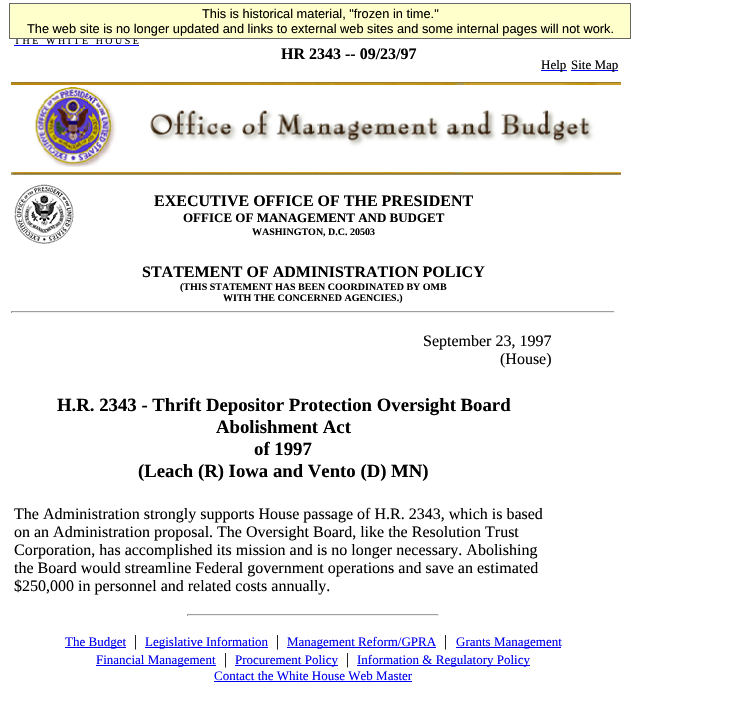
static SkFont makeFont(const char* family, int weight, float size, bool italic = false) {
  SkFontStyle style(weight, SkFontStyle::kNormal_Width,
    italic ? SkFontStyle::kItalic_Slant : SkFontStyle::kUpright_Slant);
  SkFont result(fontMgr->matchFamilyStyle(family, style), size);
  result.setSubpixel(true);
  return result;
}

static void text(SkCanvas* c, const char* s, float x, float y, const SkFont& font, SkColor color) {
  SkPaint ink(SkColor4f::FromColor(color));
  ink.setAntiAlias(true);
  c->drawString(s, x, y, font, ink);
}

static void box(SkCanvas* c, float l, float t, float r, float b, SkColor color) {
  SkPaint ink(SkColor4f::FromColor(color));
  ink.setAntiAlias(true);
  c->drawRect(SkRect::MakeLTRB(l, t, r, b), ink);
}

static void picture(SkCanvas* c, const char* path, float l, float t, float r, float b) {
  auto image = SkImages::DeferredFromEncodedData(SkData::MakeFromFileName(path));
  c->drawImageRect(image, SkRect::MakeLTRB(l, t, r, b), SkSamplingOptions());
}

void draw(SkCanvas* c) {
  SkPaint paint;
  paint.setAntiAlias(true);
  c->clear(0xffffffff);
  SkFont face1 = makeFont("Liberation Serif", 400, 10);
  text(c, "T H E   W H I T E   H O U S E", 14, 44, face1, 0xff000000);
  paint.setColor(0xffffffcc);
  c->drawRect(SkRect::MakeLTRB(9.5f, 3.5f, 630.5f, 38.5f), paint);
  paint.setStyle(SkPaint::kStroke_Style);
  paint.setStrokeWidth(1);
  paint.setColor(0xff666666);
  c->drawRect(SkRect::MakeLTRB(9.5f, 3.5f, 630.5f, 38.5f), paint);
  SkFont face2 = makeFont("Liberation Sans", 400, 12.8f);
  text(c, "This is historical material, \"frozen in time.\"", 202, 18, face2, 0xff000000);
  text(c, "The web site is no longer updated and links to external web sites and some internal pages will not work.", 27, 33, face2, 0xff000000);
  box(c, 14, 45, 139, 46, 0xff0000ee);
  SkFont face3 = makeFont("Liberation Serif", 700, 16);
  text(c, "HR 2343 -- 09/23/97", 281, 59, face3, 0xff000000);
  box(c, 541, 70, 567, 71, 0xff0000ee);
  SkFont face4 = makeFont("Liberation Serif", 400, 13);
  text(c, "Help", 541, 69, face4, 0xff000000);
  box(c, 571, 70, 618, 71, 0xff0000ee);
  text(c, "Site Map", 571, 69, face4, 0xff000000);
  picture(c, "img_01.png", 11, 82, 621, 167);
  picture(c, "img_02.png", 11, 172, 621, 175);
  picture(c, "img_03.png", 14, 184, 74, 244);
  text(c, "EXECUTIVE OFFICE OF THE PRESIDENT", 154, 206, face3, 0xff000000);
  SkFont face5 = makeFont("Liberation Serif", 700, 13);
  text(c, "OFFICE OF MANAGEMENT AND BUDGET", 183, 222, face5, 0xff000000);
  SkFont face6 = makeFont("Liberation Serif", 700, 10);
  text(c, "WASHINGTON, D.C. 20503", 252, 235, face6, 0xff000000);
  text(c, "STATEMENT OF ADMINISTRATION POLICY", 142, 277, face3, 0xff000000);
  text(c, "(THIS STATEMENT HAS BEEN COORDINATED BY OMB", 180, 290, face6, 0xff000000);
  text(c, "WITH THE CONCERNED AGENCIES.)", 223, 301, face6, 0xff000000);
  box(c, 11, 311, 615, 312, 0xff9f9f9f);
  box(c, 614, 311, 615, 313, 0xffeeeeee);
  box(c, 11, 312, 615, 313, 0xffeeeeee);
  box(c, 11, 311, 12, 313, 0xff9f9f9f);
  SkFont face7 = makeFont("Liberation Serif", 400, 16);
  text(c, "September 23, 1997", 423, 346, face7, 0xff000000);
  text(c, "(House)", 500, 364, face7, 0xff000000);
  SkFont face8 = makeFont("Liberation Serif", 700, 18.75f);
  text(c, "H.R. 2343 - Thrift Depositor Protection Oversight Board", 57, 411, face8, 0xff000000);
  text(c, "Abolishment Act", 216, 433, face8, 0xff000000);
  text(c, "of 1997", 254, 455, face8, 0xff000000);
  text(c, "(Leach (R) Iowa and Vento (D) MN)", 138, 477, face8, 0xff000000);
  text(c, "The Administration strongly supports House passage of H.R. 2343, which is based", 14, 519, face7, 0xff000000);
  text(c, "on an Administration proposal. The Oversight Board, like the Resolution Trust", 14, 537, face7, 0xff000000);
  text(c, "Corporation, has accomplished its mission and is no longer necessary. Abolishing", 14, 555, face7, 0xff000000);
  text(c, "the Board would streamline Federal government operations and save an estimated", 14, 573, face7, 0xff000000);
  text(c, "$250,000 in personnel and related costs annually.", 14, 591, face7, 0xff000000);
  box(c, 187, 614, 439, 615, 0xff9f9f9f);
  box(c, 438, 614, 439, 616, 0xffeeeeee);
  box(c, 187, 615, 439, 616, 0xffeeeeee);
  box(c, 187, 614, 188, 616, 0xff9f9f9f);
  box(c, 65, 647, 126, 648, 0xff0000ee);
  text(c, "The Budget", 65, 646, face4, 0xff0000ee);
  text(c, "|", 134, 646, face7, 0xff000000);
  box(c, 145, 647, 268, 648, 0xff0000ee);
  text(c, "Legislative Information", 145, 646, face4, 0xff0000ee);
  text(c, "|", 276, 646, face7, 0xff000000);
  box(c, 287, 647, 436, 648, 0xff0000ee);
  text(c, "Management Reform/GPRA", 287, 646, face4, 0xff0000ee);
  text(c, "|", 444, 646, face7, 0xff000000);
  box(c, 456, 647, 561, 648, 0xff0000ee);
  text(c, "Grants Management", 456, 646, face4, 0xff0000ee);
  box(c, 96, 665, 216, 666, 0xff0000ee);
  text(c, "Financial Management", 96, 664, face4, 0xff0000ee);
  text(c, "|", 224, 664, face7, 0xff000000);
  box(c, 235, 665, 338, 666, 0xff0000ee);
  text(c, "Procurement Policy", 235, 664, face4, 0xff0000ee);
  text(c, "|", 346, 664, face7, 0xff000000);
  box(c, 357, 665, 530, 666, 0xff0000ee);
  text(c, "Information & Regulatory Policy", 357, 664, face4, 0xff0000ee);
  text(c, "Contact the White House Web Master", 214, 680, face4, 0xff0000ee);
  box(c, 214, 681, 412, 682, 0xff0000ee);
}
